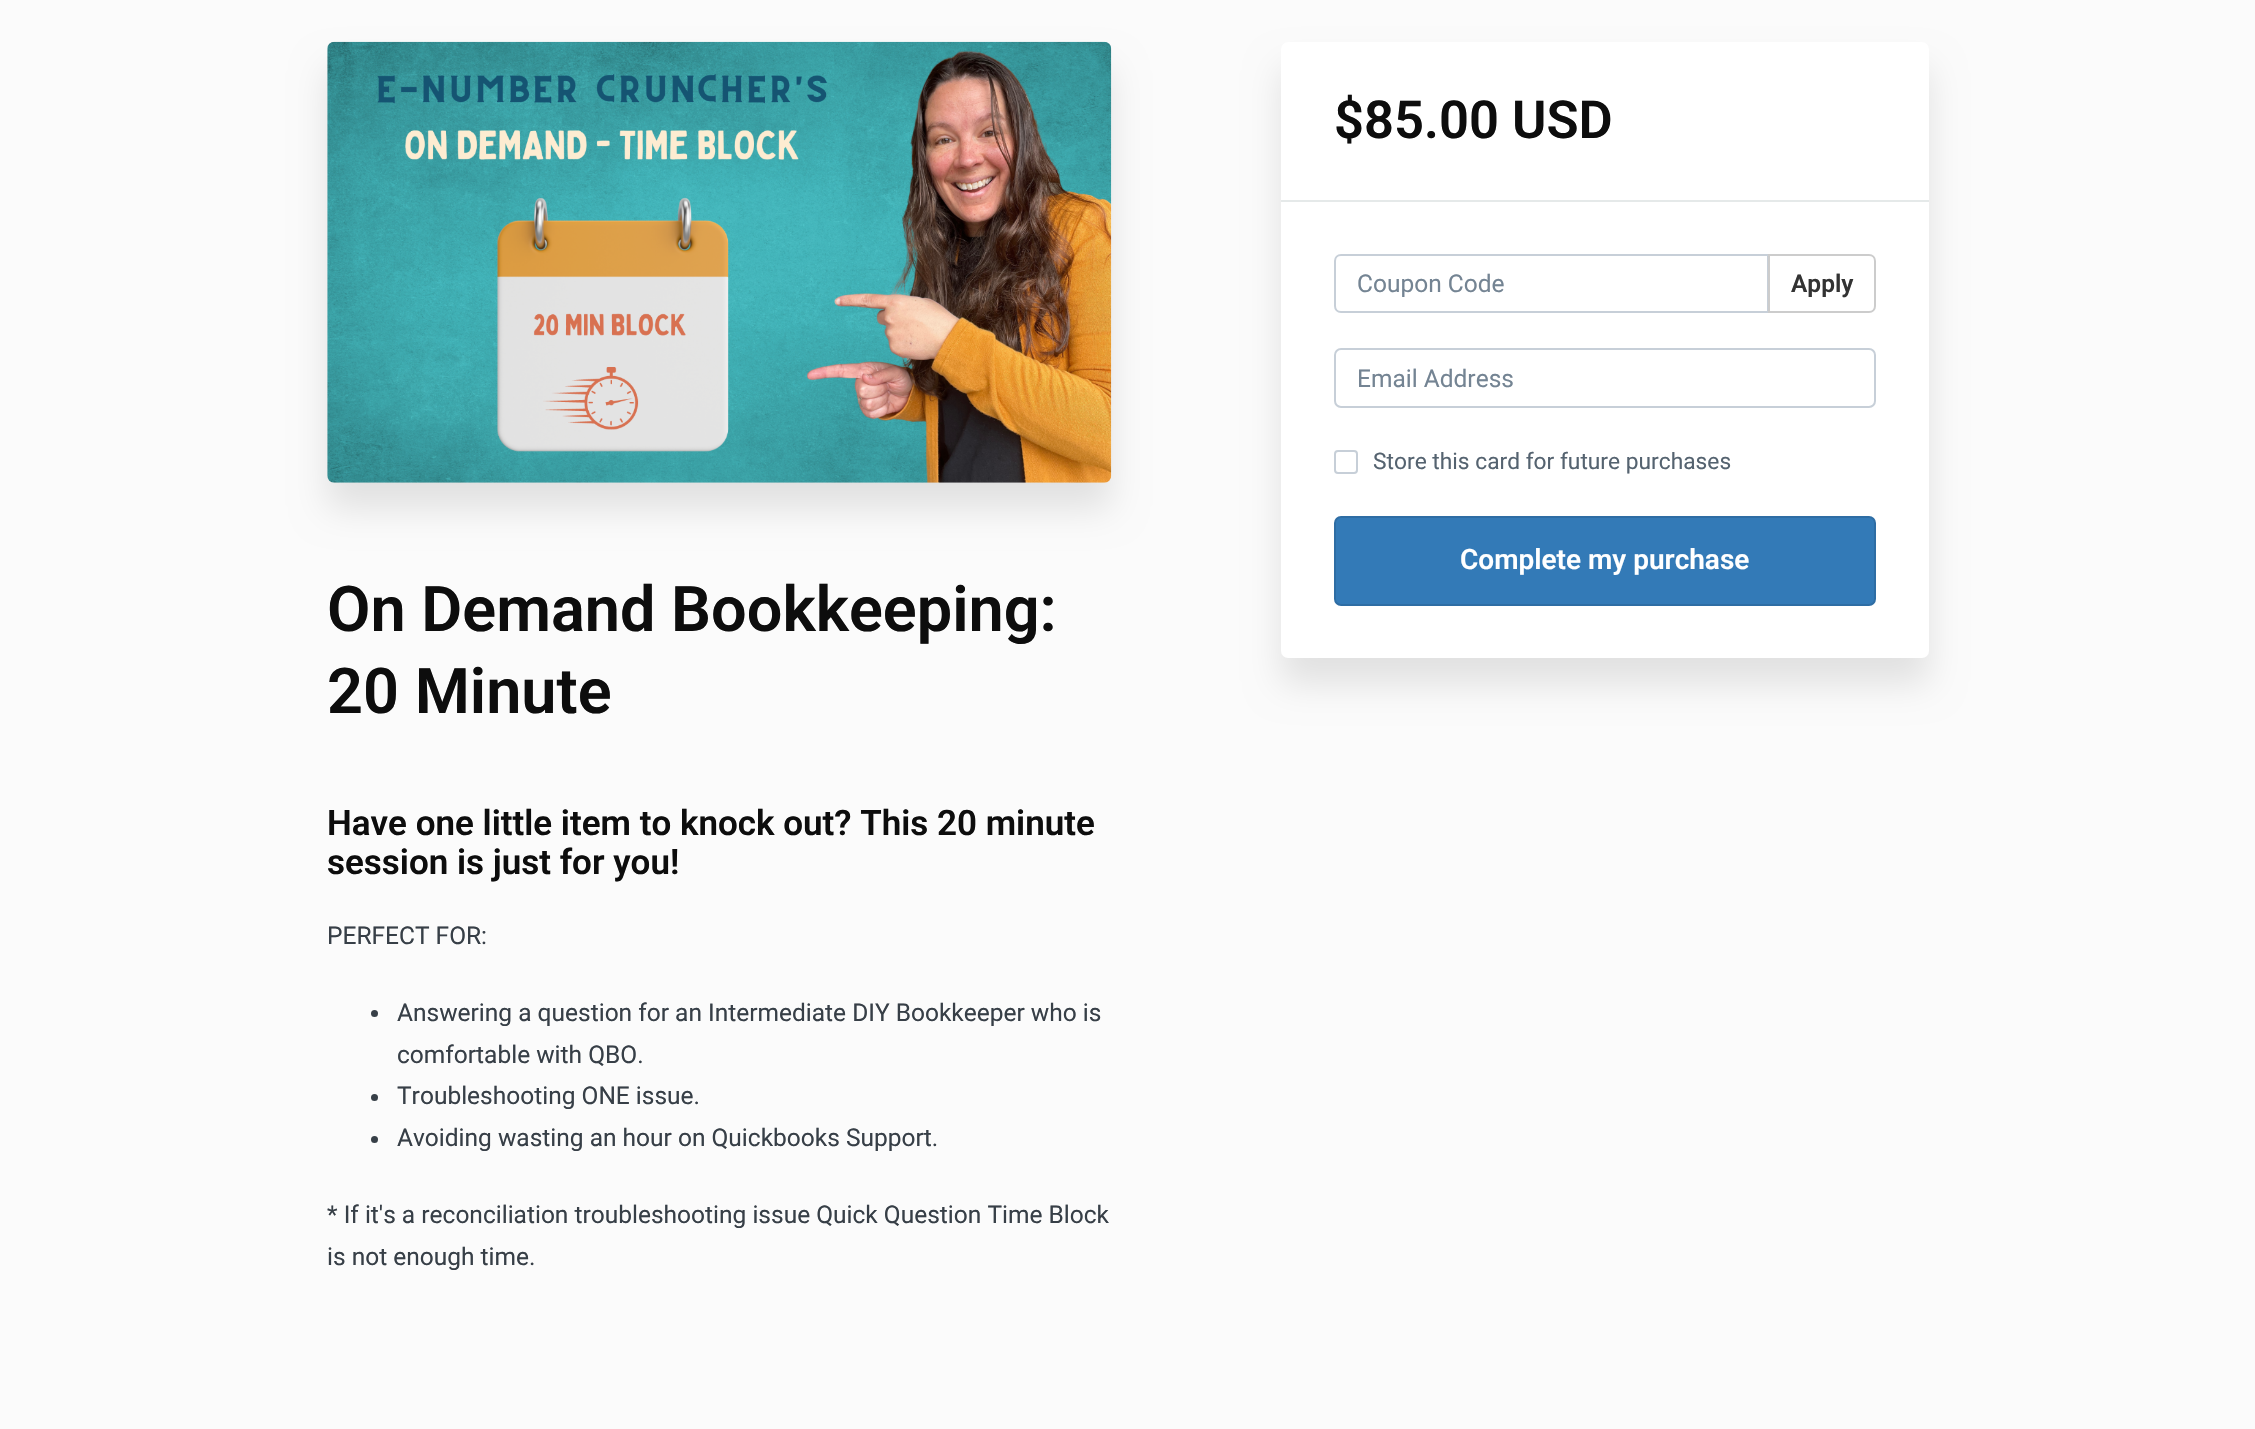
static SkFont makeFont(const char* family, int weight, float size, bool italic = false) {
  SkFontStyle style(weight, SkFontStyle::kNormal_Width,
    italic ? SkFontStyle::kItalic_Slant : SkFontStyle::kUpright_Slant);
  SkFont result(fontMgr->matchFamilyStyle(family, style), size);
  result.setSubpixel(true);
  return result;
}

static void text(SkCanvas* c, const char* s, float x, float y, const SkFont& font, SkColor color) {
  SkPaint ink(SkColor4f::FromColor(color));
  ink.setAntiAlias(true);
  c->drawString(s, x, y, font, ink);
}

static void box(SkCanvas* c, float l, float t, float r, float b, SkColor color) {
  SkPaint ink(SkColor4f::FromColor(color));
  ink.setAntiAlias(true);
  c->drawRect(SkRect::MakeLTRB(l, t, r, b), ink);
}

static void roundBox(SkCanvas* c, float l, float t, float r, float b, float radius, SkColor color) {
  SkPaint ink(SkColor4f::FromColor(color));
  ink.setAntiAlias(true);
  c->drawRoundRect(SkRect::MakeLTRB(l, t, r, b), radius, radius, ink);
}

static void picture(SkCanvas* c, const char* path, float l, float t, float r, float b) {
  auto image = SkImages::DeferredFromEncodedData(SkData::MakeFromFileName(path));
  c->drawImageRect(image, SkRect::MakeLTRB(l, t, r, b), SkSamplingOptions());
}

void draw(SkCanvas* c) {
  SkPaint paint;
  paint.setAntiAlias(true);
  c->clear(0xfffbfbfb);
  paint.setColor(0x1a000000);
  paint.setMaskFilter(SkMaskFilter::MakeBlur(kNormal_SkBlurStyle, 17.5f));
  c->drawRoundRect(SkRect::MakeLTRB(1281, 68, 1929, 684), 7, 7, paint);
  paint.setMaskFilter(nullptr);
  roundBox(c, 1281, 42, 1929, 658, 7, 0xffffffff);
  box(c, 1281, 200, 1929, 202, 0xffe5e9e9);
  SkFont face1 = makeFont("Roboto", 600, 52.5f);
  text(c, "$85.00 USD", 1334, 138, face1, 0xff0d0d0d);
  paint.setStyle(SkPaint::kStroke_Style);
  paint.setStrokeWidth(2);
  paint.setColor(0xffc7cfd8);
  c->drawPath(SkPathBuilder().moveTo(1341, 255).lineTo(1768, 255).lineTo(1768, 312).lineTo(1341, 312).cubicTo(1337.5f, 312, 1335, 309.5f, 1335, 306).lineTo(1335, 261).cubicTo(1335, 257.5f, 1337.5f, 255, 1341, 255).close().detach(), paint);
  SkFont face2 = makeFont("Roboto", 400, 24.5f);
  text(c, "Coupon Code", 1357, 292, face2, 0xff748493);
  paint.setStyle(SkPaint::kFill_Style);
  paint.setColor(0xffffffff);
  c->drawPath(SkPathBuilder().moveTo(1769, 255).lineTo(1869, 255).cubicTo(1872.5f, 255, 1875, 257.5f, 1875, 261).lineTo(1875, 306).cubicTo(1875, 309.5f, 1872.5f, 312, 1869, 312).lineTo(1769, 312).close().detach(), paint);
  paint.setStyle(SkPaint::kStroke_Style);
  paint.setColor(0xffcccccc);
  c->drawPath(SkPathBuilder().moveTo(1769, 255).lineTo(1869, 255).cubicTo(1872.5f, 255, 1875, 257.5f, 1875, 261).lineTo(1875, 306).cubicTo(1875, 309.5f, 1872.5f, 312, 1869, 312).lineTo(1769, 312).close().detach(), paint);
  SkFont face3 = makeFont("Roboto", 600, 24.5f);
  text(c, "Apply", 1791, 292, face3, 0xff333333);
  paint.setColor(0xffc7cfd8);
  c->drawRoundRect(SkRect::MakeLTRB(1335, 349, 1875, 407), 6, 6, paint);
  text(c, "Email Address", 1357, 387, face2, 0xff748493);
  c->drawRoundRect(SkRect::MakeLTRB(1335, 451, 1357, 473), 3, 3, paint);
  SkFont face4 = makeFont("Roboto", 400, 22.75f);
  text(c, "Store this card for future purchases", 1373, 469, face4, 0xff556370);
  paint.setStyle(SkPaint::kFill_Style);
  paint.setColor(0xff337ab7);
  c->drawRoundRect(SkRect::MakeLTRB(1335, 517, 1875, 605), 6, 6, paint);
  paint.setStyle(SkPaint::kStroke_Style);
  paint.setColor(0xff2e6da4);
  c->drawRoundRect(SkRect::MakeLTRB(1335, 517, 1875, 605), 6, 6, paint);
  SkFont face5 = makeFont("Roboto", 600, 28);
  text(c, "Complete my purchase", 1460, 569, face5, 0xffffffff);
  paint.setStyle(SkPaint::kFill_Style);
  paint.setColor(0x1a000000);
  paint.setMaskFilter(SkMaskFilter::MakeBlur(kNormal_SkBlurStyle, 17.5f));
  c->drawRoundRect(SkRect::MakeLTRB(327, 68, 1111, 509), 7, 7, paint);
  paint.setMaskFilter(nullptr);
  picture(c, "img_01.png", 327, 41, 1112, 483);
  SkFont face6 = makeFont("Roboto", 600, 63);
  text(c, "On Demand Bookkeeping:", 327, 631, face6, 0xff0d0d0d);
  text(c, "20 Minute", 327, 713, face6, 0xff0d0d0d);
  SkFont face7 = makeFont("Roboto", 600, 35);
  text(c, "Have one little item to knock out? This 20 minute", 327, 835, face7, 0xff0d0d0d);
  text(c, "session is just for you!", 327, 874, face7, 0xff0d0d0d);
  text(c, "PERFECT FOR:", 327, 944, face2, 0xff373f47);
  paint.setColor(0xff373f47);
  c->drawCircle(374.5f, 1013.5f, 3.5f, paint);
  text(c, "Answering a question for an Intermediate DIY Bookkeeper who is", 397, 1021, face2, 0xff373f47);
  text(c, "comfortable with QBO.", 397, 1063, face2, 0xff373f47);
  c->drawCircle(374.5f, 1097.5f, 3.5f, paint);
  text(c, "Troubleshooting ONE issue.", 397, 1104, face2, 0xff373f47);
  c->drawCircle(374.5f, 1139.5f, 3.5f, paint);
  text(c, "Avoiding wasting an hour on Quickbooks Support.", 397, 1146, face2, 0xff373f47);
  text(c, "* If it's a reconciliation troubleshooting issue Quick Question Time Block", 327, 1223, face2, 0xff373f47);
  text(c, "is not enough time.", 327, 1265, face2, 0xff373f47);
}
